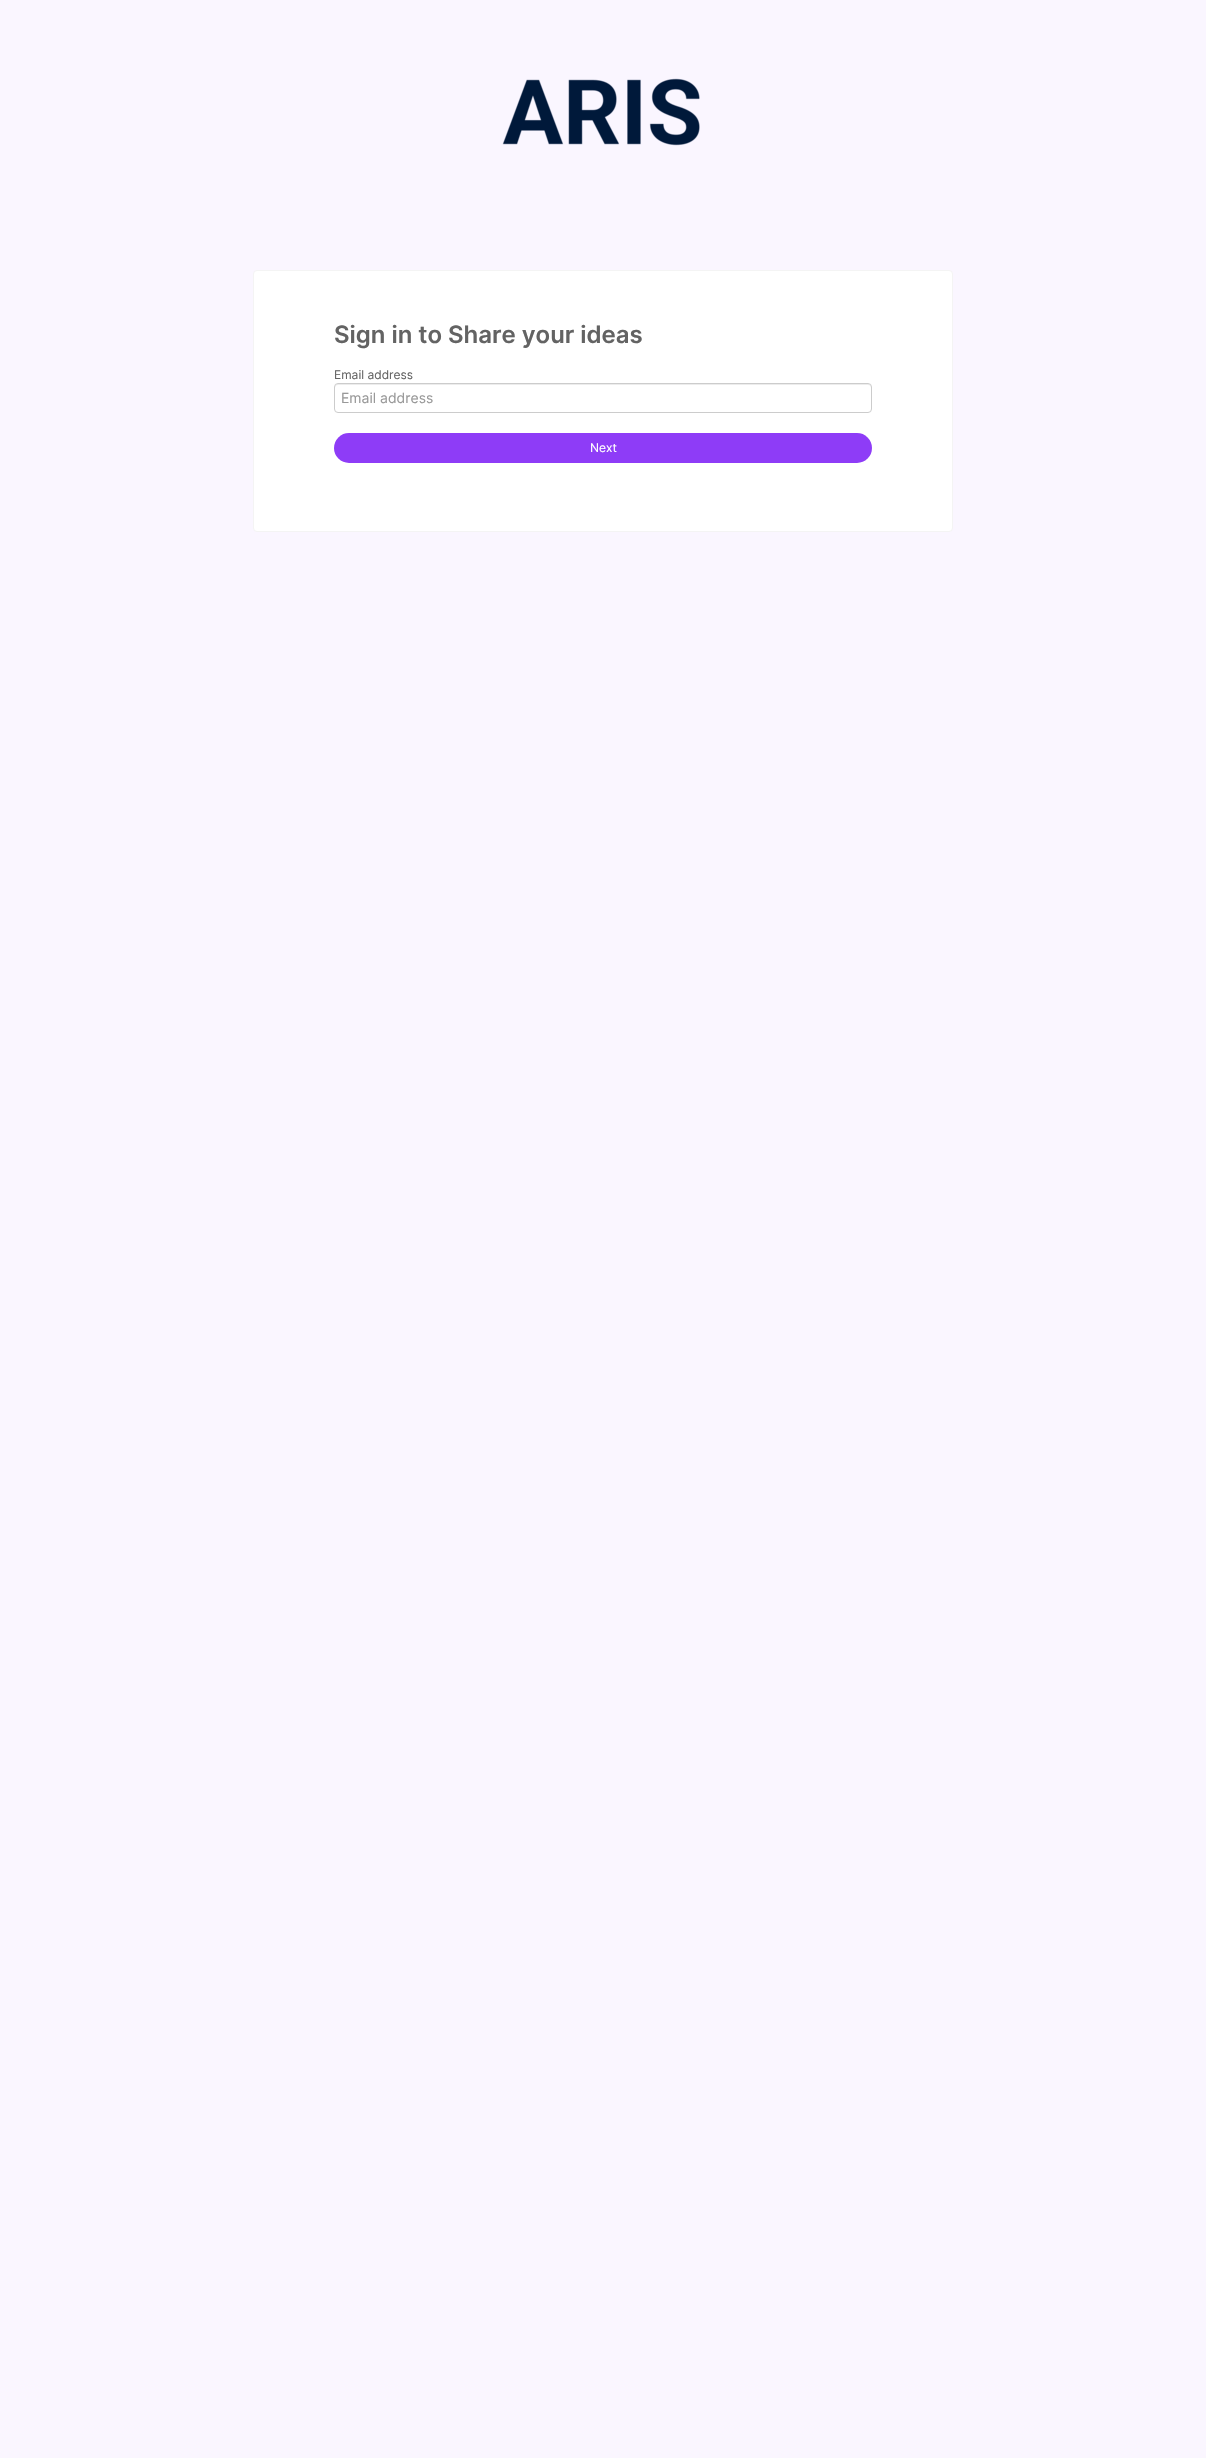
static SkFont makeFont(const char* family, int weight, float size, bool italic = false) {
  SkFontStyle style(weight, SkFontStyle::kNormal_Width,
    italic ? SkFontStyle::kItalic_Slant : SkFontStyle::kUpright_Slant);
  SkFont result(fontMgr->matchFamilyStyle(family, style), size);
  result.setSubpixel(true);
  return result;
}

static void text(SkCanvas* c, const char* s, float x, float y, const SkFont& font, SkColor color) {
  SkPaint ink(SkColor4f::FromColor(color));
  ink.setAntiAlias(true);
  c->drawString(s, x, y, font, ink);
}

static void roundBox(SkCanvas* c, float l, float t, float r, float b, float radius, SkColor color) {
  SkPaint ink(SkColor4f::FromColor(color));
  ink.setAntiAlias(true);
  c->drawRoundRect(SkRect::MakeLTRB(l, t, r, b), radius, radius, ink);
}

static void picture(SkCanvas* c, const char* path, float l, float t, float r, float b) {
  auto image = SkImages::DeferredFromEncodedData(SkData::MakeFromFileName(path));
  c->drawImageRect(image, SkRect::MakeLTRB(l, t, r, b), SkSamplingOptions());
}

void draw(SkCanvas* c) {
  SkPaint paint;
  paint.setAntiAlias(true);
  c->clear(0xfffaf6ff);
  picture(c, "img_01.png", 502, 78, 700, 146);
  paint.setColor(0xffffffff);
  c->drawRoundRect(SkRect::MakeLTRB(253.5f, 270.5f, 952.5f, 531.5f), 3.5f, 3.5f, paint);
  paint.setStyle(SkPaint::kStroke_Style);
  paint.setStrokeWidth(1);
  paint.setColor(0xfff4f4f4);
  c->drawRoundRect(SkRect::MakeLTRB(253.5f, 270.5f, 952.5f, 531.5f), 3.5f, 3.5f, paint);
  SkFont face1 = makeFont("Inter", 600, 24);
  text(c, "Sign in to Share your ideas", 334, 343, face1, 0xff636363);
  SkFont face2 = makeFont("Inter", 400, 12);
  text(c, "Email address", 334, 379, face2, 0xff636363);
  paint.setStyle(SkPaint::kFill_Style);
  paint.setColor(0xffececec);
  c->drawPath(SkPathBuilder().moveTo(338, 385).lineTo(868, 385).cubicTo(870, 385, 871, 386, 871, 388).lineTo(871, 387).cubicTo(871, 385, 870, 384, 868, 384).lineTo(338, 384).cubicTo(336, 384, 335, 385, 335, 387).lineTo(335, 388).cubicTo(335, 386, 336, 385, 338, 385).close().detach(), paint);
  paint.setStyle(SkPaint::kStroke_Style);
  paint.setColor(0xffcccccc);
  c->drawRoundRect(SkRect::MakeLTRB(334.5f, 383.5f, 871.5f, 412.5f), 3.5f, 3.5f, paint);
  SkFont face3 = makeFont("Inter", 400, 14);
  text(c, "Email address", 341, 403, face3, 0xff999999);
  roundBox(c, 334, 433, 872, 463, 15, 0xff8e3cf7);
  text(c, "Next", 590, 452, face2, 0xffffffff);
}
